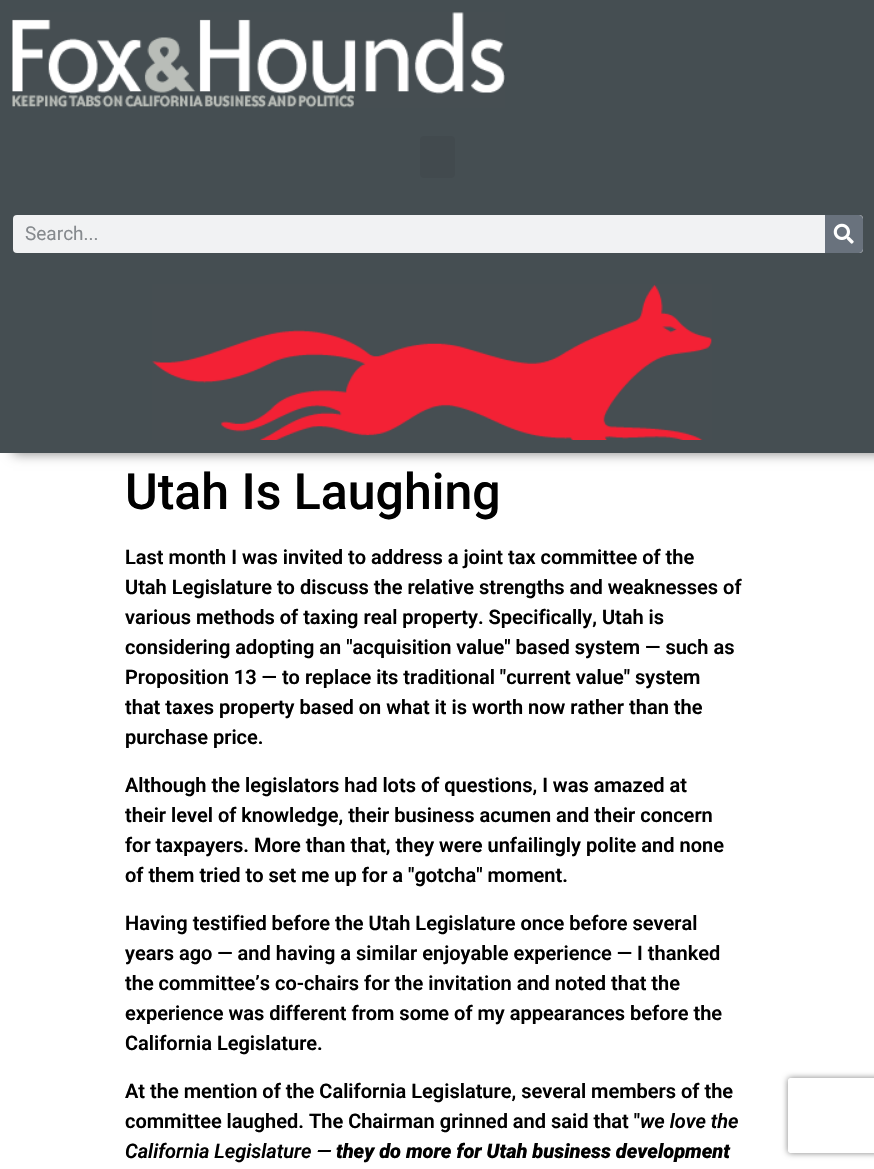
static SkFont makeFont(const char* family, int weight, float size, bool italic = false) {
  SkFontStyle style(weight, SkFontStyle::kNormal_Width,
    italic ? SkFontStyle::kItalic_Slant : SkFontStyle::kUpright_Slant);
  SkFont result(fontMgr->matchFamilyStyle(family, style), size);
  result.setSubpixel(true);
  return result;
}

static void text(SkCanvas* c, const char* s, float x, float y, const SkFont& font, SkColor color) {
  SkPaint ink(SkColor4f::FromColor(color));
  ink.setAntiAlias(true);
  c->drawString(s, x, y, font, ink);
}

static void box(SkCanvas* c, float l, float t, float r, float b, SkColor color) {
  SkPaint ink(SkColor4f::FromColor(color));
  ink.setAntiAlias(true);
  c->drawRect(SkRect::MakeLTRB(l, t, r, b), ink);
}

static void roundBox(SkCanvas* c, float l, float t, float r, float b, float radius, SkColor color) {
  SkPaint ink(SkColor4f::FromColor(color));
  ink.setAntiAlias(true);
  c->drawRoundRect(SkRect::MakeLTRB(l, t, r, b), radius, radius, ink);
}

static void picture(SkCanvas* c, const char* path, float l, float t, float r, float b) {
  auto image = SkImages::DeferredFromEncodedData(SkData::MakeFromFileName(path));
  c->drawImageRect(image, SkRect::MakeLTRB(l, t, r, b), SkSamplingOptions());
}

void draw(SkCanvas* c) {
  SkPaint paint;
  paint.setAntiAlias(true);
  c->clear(0xffffffff);
  paint.setColor(0x80000000);
  paint.setMaskFilter(SkMaskFilter::MakeBlur(kNormal_SkBlurStyle, 6));
  c->drawRect(SkRect::MakeLTRB(13, 0, 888, 453), paint);
  paint.setMaskFilter(nullptr);
  box(c, 0, 0, 874, 453, 0xff454e52);
  picture(c, "img_01.png", 12, 12, 505, 108);
  roundBox(c, 420, 136, 455, 178, 4, 0xff424a4e);
  roundBox(c, 13, 215, 863, 253, 4, 0xfff1f2f3);
  SkFont face1 = makeFont("Roboto", 400, 19);
  text(c, "Search...", 25, 240, face1, 0xff868a8e);
  paint.setColor(0xff69727d);
  c->drawPath(SkPathBuilder().moveTo(825, 215).lineTo(859, 215).cubicTo(861, 215, 863, 217, 863, 219).lineTo(863, 249).cubicTo(863, 251, 861, 253, 859, 253).lineTo(825, 253).close().detach(), paint);
  picture(c, "img_02.png", 833, 223, 854, 244);
  picture(c, "img_03.png", 152, 284, 712, 440);
  SkFont face2 = makeFont("Roboto", 500, 50);
  text(c, "Utah Is Laughing", 125, 509, face2, 0xff000000);
  SkFont face3 = makeFont("Roboto", 600, 20);
  text(c, "Last month I was invited to address a joint tax committee of the", 125, 564, face3, 0xff000000);
  text(c, "Utah Legislature to discuss the relative strengths and weaknesses of", 125, 594, face3, 0xff000000);
  text(c, "various methods of taxing real property. Specifically, Utah is", 125, 624, face3, 0xff000000);
  text(c, "considering adopting an \"acquisition value\" based system — such as", 125, 654, face3, 0xff000000);
  text(c, "Proposition 13 — to replace its traditional \"current value\" system", 125, 684, face3, 0xff000000);
  text(c, "that taxes property based on what it is worth now rather than the", 125, 714, face3, 0xff000000);
  text(c, "purchase price.", 125, 744, face3, 0xff000000);
  text(c, "Although the legislators had lots of questions, I was amazed at", 125, 792, face3, 0xff000000);
  text(c, "their level of knowledge, their business acumen and their concern", 125, 822, face3, 0xff000000);
  text(c, "for taxpayers. More than that, they were unfailingly polite and none", 125, 852, face3, 0xff000000);
  text(c, "of them tried to set me up for a \"gotcha\" moment.", 125, 882, face3, 0xff000000);
  text(c, "Having testified before the Utah Legislature once before several", 125, 930, face3, 0xff000000);
  text(c, "years ago — and having a similar enjoyable experience — I thanked", 125, 960, face3, 0xff000000);
  text(c, "the committee’s co-chairs for the invitation and noted that the", 125, 990, face3, 0xff000000);
  text(c, "experience was different from some of my appearances before the", 125, 1020, face3, 0xff000000);
  text(c, "California Legislature.", 125, 1050, face3, 0xff000000);
  text(c, "At the mention of the California Legislature, several members of the", 125, 1098, face3, 0xff000000);
  text(c, "committee laughed. The Chairman grinned and said that \"", 125, 1128, face3, 0xff000000);
  SkFont face4 = makeFont("Roboto", 600, 20, true);
  text(c, "we love the", 640, 1128, face4, 0xff000000);
  text(c, "California Legislature —", 125, 1158, face4, 0xff000000);
  SkFont face5 = makeFont("Roboto", 900, 20, true);
  text(c, "they do more for Utah business development", 336, 1158, face5, 0xff000000);
  c->save();
  c->clipPath(SkPathBuilder(SkPathFillType::kEvenOdd).moveTo(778, 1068).lineTo(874, 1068).lineTo(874, 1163).lineTo(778, 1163).close().moveTo(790.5f, 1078).lineTo(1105.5f, 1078).cubicTo(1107, 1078, 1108, 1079, 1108, 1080.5f).lineTo(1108, 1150.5f).cubicTo(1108, 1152, 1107, 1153, 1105.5f, 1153).lineTo(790.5f, 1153).cubicTo(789, 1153, 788, 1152, 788, 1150.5f).lineTo(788, 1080.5f).cubicTo(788, 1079, 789, 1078, 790.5f, 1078).close().detach(), true);
  paint.setColor(0xff808080);
  paint.setMaskFilter(SkMaskFilter::MakeBlur(kNormal_SkBlurStyle, 3));
  c->drawRoundRect(SkRect::MakeLTRB(788, 1078, 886, 1153), 2.5f, 2.5f, paint);
  paint.setMaskFilter(nullptr);
  c->restore();
}
